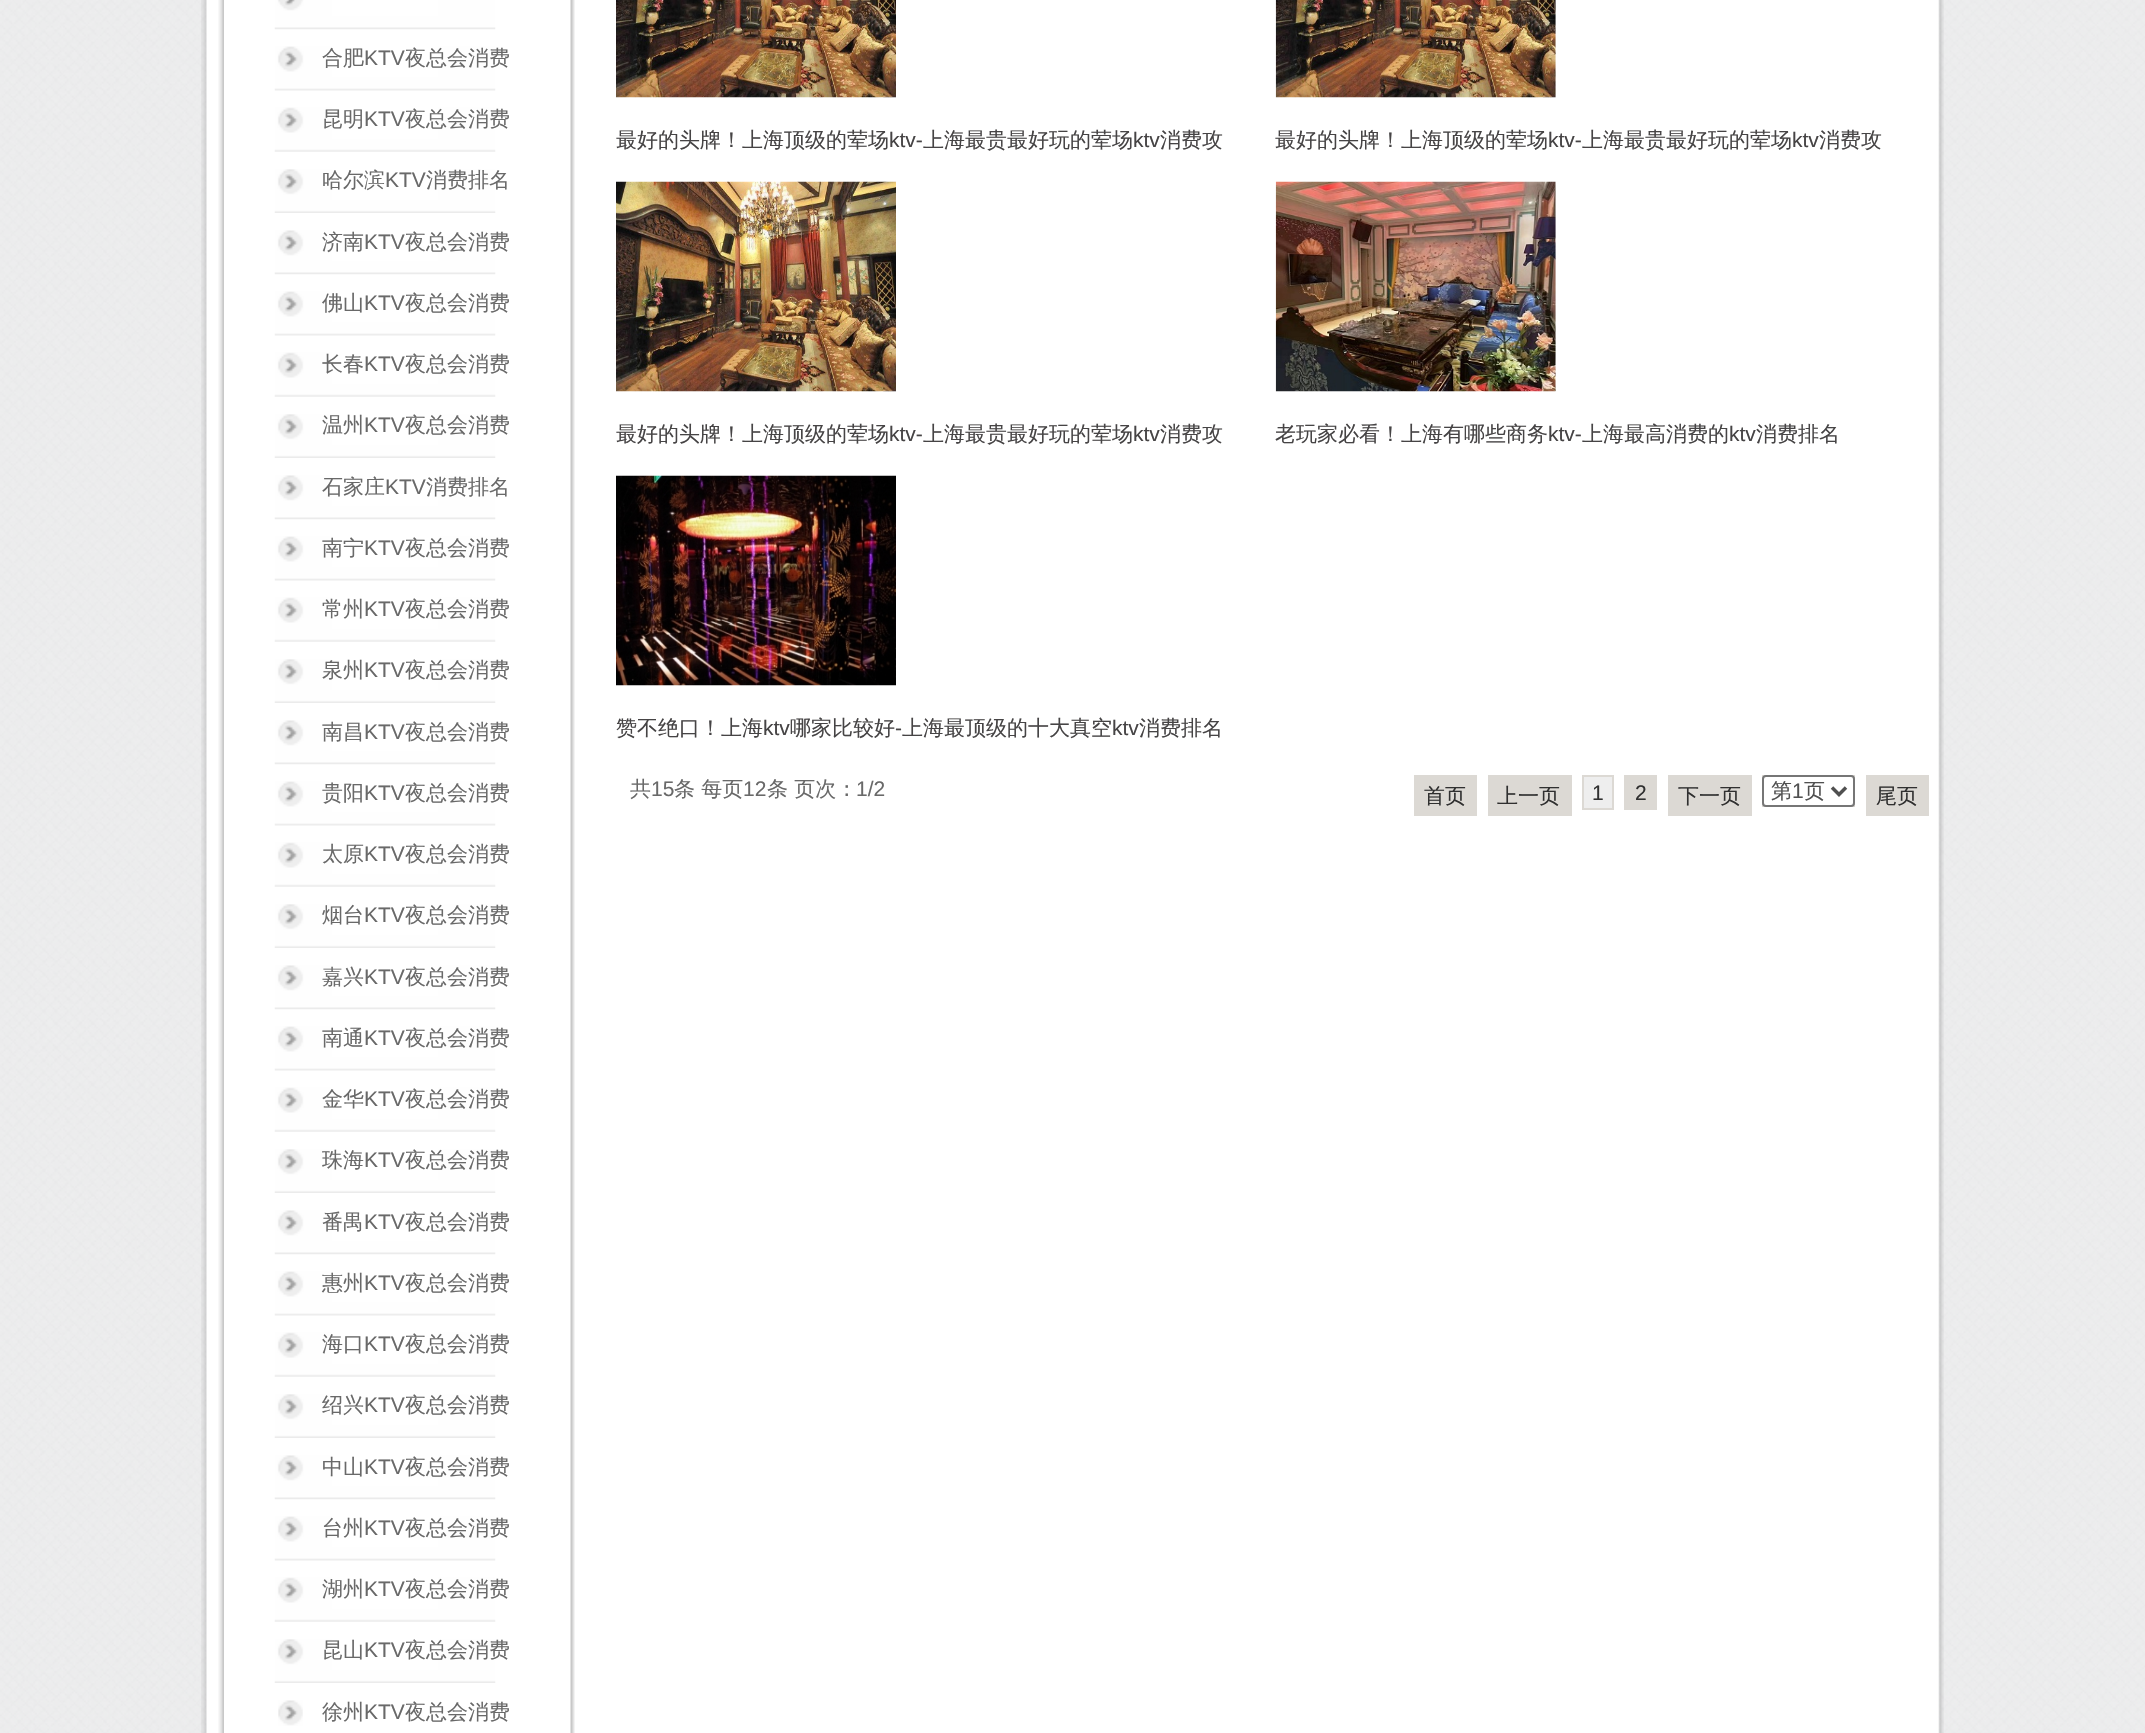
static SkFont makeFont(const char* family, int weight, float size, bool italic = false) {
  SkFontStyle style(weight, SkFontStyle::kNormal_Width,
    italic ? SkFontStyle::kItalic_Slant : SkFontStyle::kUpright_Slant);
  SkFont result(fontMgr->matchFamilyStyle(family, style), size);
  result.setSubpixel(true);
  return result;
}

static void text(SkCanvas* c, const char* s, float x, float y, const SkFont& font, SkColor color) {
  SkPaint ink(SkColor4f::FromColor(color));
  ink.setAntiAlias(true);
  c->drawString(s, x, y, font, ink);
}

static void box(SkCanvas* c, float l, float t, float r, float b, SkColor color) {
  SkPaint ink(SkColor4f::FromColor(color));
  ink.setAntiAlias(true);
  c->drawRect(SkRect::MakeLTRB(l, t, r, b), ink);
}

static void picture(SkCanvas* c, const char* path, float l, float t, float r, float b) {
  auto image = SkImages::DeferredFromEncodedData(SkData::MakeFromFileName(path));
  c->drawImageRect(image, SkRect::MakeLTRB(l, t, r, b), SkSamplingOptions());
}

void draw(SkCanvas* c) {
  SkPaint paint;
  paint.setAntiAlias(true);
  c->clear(0xffffffff);
  picture(c, "img_01.png", 0, 0, 2145, 1733);
  picture(c, "img_02.png", 201, 0, 1944, 1733);
  picture(c, "img_03.png", 218, 0, 224, 1733);
  picture(c, "img_04.png", 570, 0, 575, 1733);
  picture(c, "img_05.png", 274, 0, 496, 30);
  picture(c, "img_06.png", 274, 46, 496, 91);
  SkFont face1 = makeFont("WenQuanYi Zen Hei", 500, 21);
  text(c, "合肥", 322, 65, face1, 0xff696969);
  SkFont face2 = makeFont("Liberation Sans", 400, 21);
  text(c, "KTV", 364, 65, face2, 0xff696969);
  text(c, "夜总会消费", 405, 65, face1, 0xff696969);
  picture(c, "img_07.png", 274, 107, 496, 152);
  text(c, "昆明", 322, 126, face1, 0xff696969);
  text(c, "KTV", 364, 126, face2, 0xff696969);
  text(c, "夜总会消费", 405, 126, face1, 0xff696969);
  picture(c, "img_08.png", 274, 169, 496, 213);
  text(c, "哈尔滨", 322, 187, face1, 0xff696969);
  text(c, "KTV", 385, 187, face2, 0xff696969);
  text(c, "消费排名", 426, 187, face1, 0xff696969);
  picture(c, "img_09.png", 274, 230, 496, 275);
  text(c, "济南", 322, 249, face1, 0xff696969);
  text(c, "KTV", 364, 249, face2, 0xff696969);
  text(c, "夜总会消费", 405, 249, face1, 0xff696969);
  picture(c, "img_06.png", 274, 291, 496, 336);
  text(c, "佛山", 322, 310, face1, 0xff696969);
  text(c, "KTV", 364, 310, face2, 0xff696969);
  text(c, "夜总会消费", 405, 310, face1, 0xff696969);
  picture(c, "img_07.png", 274, 352, 496, 397);
  text(c, "长春", 322, 371, face1, 0xff696969);
  text(c, "KTV", 364, 371, face2, 0xff696969);
  text(c, "夜总会消费", 405, 371, face1, 0xff696969);
  picture(c, "img_08.png", 274, 414, 496, 458);
  text(c, "温州", 322, 432, face1, 0xff696969);
  text(c, "KTV", 364, 432, face2, 0xff696969);
  text(c, "夜总会消费", 405, 432, face1, 0xff696969);
  picture(c, "img_09.png", 274, 475, 496, 520);
  text(c, "石家庄", 322, 494, face1, 0xff696969);
  text(c, "KTV", 385, 494, face2, 0xff696969);
  text(c, "消费排名", 426, 494, face1, 0xff696969);
  picture(c, "img_06.png", 274, 536, 496, 581);
  text(c, "南宁", 322, 555, face1, 0xff696969);
  text(c, "KTV", 364, 555, face2, 0xff696969);
  text(c, "夜总会消费", 405, 555, face1, 0xff696969);
  picture(c, "img_07.png", 274, 597, 496, 642);
  text(c, "常州", 322, 616, face1, 0xff696969);
  text(c, "KTV", 364, 616, face2, 0xff696969);
  text(c, "夜总会消费", 405, 616, face1, 0xff696969);
  picture(c, "img_08.png", 274, 659, 496, 703);
  text(c, "泉州", 322, 677, face1, 0xff696969);
  text(c, "KTV", 364, 677, face2, 0xff696969);
  text(c, "夜总会消费", 405, 677, face1, 0xff696969);
  picture(c, "img_09.png", 274, 720, 496, 765);
  text(c, "南昌", 322, 739, face1, 0xff696969);
  text(c, "KTV", 364, 739, face2, 0xff696969);
  text(c, "夜总会消费", 405, 739, face1, 0xff696969);
  picture(c, "img_06.png", 274, 781, 496, 826);
  text(c, "贵阳", 322, 800, face1, 0xff696969);
  text(c, "KTV", 364, 800, face2, 0xff696969);
  text(c, "夜总会消费", 405, 800, face1, 0xff696969);
  picture(c, "img_07.png", 274, 842, 496, 887);
  text(c, "太原", 322, 861, face1, 0xff696969);
  text(c, "KTV", 364, 861, face2, 0xff696969);
  text(c, "夜总会消费", 405, 861, face1, 0xff696969);
  picture(c, "img_08.png", 274, 904, 496, 948);
  text(c, "烟台", 322, 922, face1, 0xff696969);
  text(c, "KTV", 364, 922, face2, 0xff696969);
  text(c, "夜总会消费", 405, 922, face1, 0xff696969);
  picture(c, "img_09.png", 274, 965, 496, 1010);
  text(c, "嘉兴", 322, 984, face1, 0xff696969);
  text(c, "KTV", 364, 984, face2, 0xff696969);
  text(c, "夜总会消费", 405, 984, face1, 0xff696969);
  picture(c, "img_06.png", 274, 1026, 496, 1071);
  text(c, "南通", 322, 1045, face1, 0xff696969);
  text(c, "KTV", 364, 1045, face2, 0xff696969);
  text(c, "夜总会消费", 405, 1045, face1, 0xff696969);
  picture(c, "img_07.png", 274, 1087, 496, 1132);
  text(c, "金华", 322, 1106, face1, 0xff696969);
  text(c, "KTV", 364, 1106, face2, 0xff696969);
  text(c, "夜总会消费", 405, 1106, face1, 0xff696969);
  picture(c, "img_08.png", 274, 1149, 496, 1193);
  text(c, "珠海", 322, 1167, face1, 0xff696969);
  text(c, "KTV", 364, 1167, face2, 0xff696969);
  text(c, "夜总会消费", 405, 1167, face1, 0xff696969);
  picture(c, "img_09.png", 274, 1210, 496, 1255);
  text(c, "番禺", 322, 1229, face1, 0xff696969);
  text(c, "KTV", 364, 1229, face2, 0xff696969);
  text(c, "夜总会消费", 405, 1229, face1, 0xff696969);
  picture(c, "img_10.png", 274, 1271, 496, 1316);
  text(c, "惠州", 322, 1290, face1, 0xff696969);
  text(c, "KTV", 364, 1290, face2, 0xff696969);
  text(c, "夜总会消费", 405, 1290, face1, 0xff696969);
  picture(c, "img_11.png", 274, 1332, 496, 1377);
  text(c, "海口", 322, 1351, face1, 0xff696969);
  text(c, "KTV", 364, 1351, face2, 0xff696969);
  text(c, "夜总会消费", 405, 1351, face1, 0xff696969);
  picture(c, "img_08.png", 274, 1394, 496, 1438);
  text(c, "绍兴", 322, 1412, face1, 0xff696969);
  text(c, "KTV", 364, 1412, face2, 0xff696969);
  text(c, "夜总会消费", 405, 1412, face1, 0xff696969);
  picture(c, "img_09.png", 274, 1455, 496, 1500);
  text(c, "中山", 322, 1474, face1, 0xff696969);
  text(c, "KTV", 364, 1474, face2, 0xff696969);
  text(c, "夜总会消费", 405, 1474, face1, 0xff696969);
  picture(c, "img_06.png", 274, 1516, 496, 1561);
  text(c, "台州", 322, 1535, face1, 0xff696969);
  text(c, "KTV", 364, 1535, face2, 0xff696969);
  text(c, "夜总会消费", 405, 1535, face1, 0xff696969);
  picture(c, "img_07.png", 274, 1577, 496, 1622);
  text(c, "湖州", 322, 1596, face1, 0xff696969);
  text(c, "KTV", 364, 1596, face2, 0xff696969);
  text(c, "夜总会消费", 405, 1596, face1, 0xff696969);
  picture(c, "img_08.png", 274, 1639, 496, 1683);
  text(c, "昆山", 322, 1657, face1, 0xff696969);
  text(c, "KTV", 364, 1657, face2, 0xff696969);
  text(c, "夜总会消费", 405, 1657, face1, 0xff696969);
  picture(c, "img_12.png", 278, 1700, 303, 1726);
  text(c, "徐州", 322, 1719, face1, 0xff696969);
  text(c, "KTV", 364, 1719, face2, 0xff696969);
  text(c, "夜总会消费", 405, 1719, face1, 0xff696969);
  picture(c, "img_13.png", 616, 0, 896, 98);
  text(c, "最好的头牌！上海顶级的荤场", 616, 147, face1, 0xff464445);
  text(c, "ktv-", 889, 147, face2, 0xff464445);
  text(c, "上海最贵最好玩的荤场", 923, 147, face1, 0xff464445);
  text(c, "ktv", 1133, 147, face2, 0xff464445);
  text(c, "消费攻", 1160, 147, face1, 0xff464445);
  picture(c, "img_14.png", 1275, 0, 1556, 98);
  text(c, "最好的头牌！上海顶级的荤场", 1275, 147, face1, 0xff464445);
  text(c, "ktv-", 1548, 147, face2, 0xff464445);
  text(c, "上海最贵最好玩的荤场", 1582, 147, face1, 0xff464445);
  text(c, "ktv", 1792, 147, face2, 0xff464445);
  text(c, "消费攻", 1819, 147, face1, 0xff464445);
  picture(c, "img_15.png", 616, 181, 896, 392);
  text(c, "最好的头牌！上海顶级的荤场", 616, 441, face1, 0xff464445);
  text(c, "ktv-", 889, 441, face2, 0xff464445);
  text(c, "上海最贵最好玩的荤场", 923, 441, face1, 0xff464445);
  text(c, "ktv", 1133, 441, face2, 0xff464445);
  text(c, "消费攻", 1160, 441, face1, 0xff464445);
  picture(c, "img_16.png", 1275, 181, 1556, 392);
  text(c, "老玩家必看！上海有哪些商务", 1275, 441, face1, 0xff464445);
  text(c, "ktv-", 1548, 441, face2, 0xff464445);
  text(c, "上海最高消费的", 1582, 441, face1, 0xff464445);
  text(c, "ktv", 1729, 441, face2, 0xff464445);
  text(c, "消费排名", 1756, 441, face1, 0xff464445);
  picture(c, "img_17.png", 616, 475, 896, 686);
  text(c, "赞不绝口！上海", 616, 735, face1, 0xff464445);
  text(c, "ktv", 763, 735, face2, 0xff464445);
  text(c, "哪家比较好", 790, 735, face1, 0xff464445);
  text(c, "-", 895, 735, face2, 0xff464445);
  text(c, "上海最顶级的十大真空", 902, 735, face1, 0xff464445);
  text(c, "ktv", 1112, 735, face2, 0xff464445);
  text(c, "消费排名", 1139, 735, face1, 0xff464445);
  text(c, "共", 630, 796, face1, 0xff696969);
  text(c, "15", 651, 796, face2, 0xff696969);
  text(c, "条 每页", 674, 796, face1, 0xff696969);
  text(c, "12", 743, 796, face2, 0xff696969);
  text(c, "条 页次：", 767, 796, face1, 0xff696969);
  text(c, "1/2", 856, 796, face2, 0xff696969);
  box(c, 1414, 775, 1477, 816, 0xffdcd9d4);
  text(c, "首页", 1424, 803, face1, 0xff303030);
  box(c, 1488, 775, 1572, 816, 0xffdcd9d4);
  text(c, "上一页", 1497, 803, face1, 0xff303030);
  paint.setColor(0xffeeeeee);
  c->drawRect(SkRect::MakeLTRB(1583, 776, 1613, 809), paint);
  paint.setStyle(SkPaint::kStroke_Style);
  paint.setStrokeWidth(2);
  paint.setColor(0xffdcd9d4);
  c->drawRect(SkRect::MakeLTRB(1583, 776, 1613, 809), paint);
  text(c, "1", 1592, 800, face2, 0xff303030);
  box(c, 1624, 775, 1657, 810, 0xffdcd9d4);
  text(c, "2", 1635, 800, face2, 0xff303030);
  box(c, 1668, 775, 1752, 816, 0xffdcd9d4);
  text(c, "下一页", 1678, 803, face1, 0xff303030);
  box(c, 1762, 775, 1855, 807, 0xffdcd9d4);
  paint.setStyle(SkPaint::kFill_Style);
  paint.setColor(0xffffffff);
  c->drawRoundRect(SkRect::MakeLTRB(1763, 776, 1854, 806), 3, 3, paint);
  paint.setStyle(SkPaint::kStroke_Style);
  paint.setColor(0xff767676);
  c->drawRoundRect(SkRect::MakeLTRB(1763, 776, 1854, 806), 3, 3, paint);
  paint.setStrokeWidth(3.5f);
  paint.setColor(0xff505050);
  c->drawPath(SkPathBuilder().moveTo(1832, 787.5f).lineTo(1839, 794.5f).lineTo(1846, 787.5f).detach(), paint);
  text(c, "第", 1771, 798, face1, 0xff505050);
  text(c, "1", 1792, 798, face2, 0xff505050);
  text(c, "页", 1804, 798, face1, 0xff505050);
  box(c, 1866, 775, 1929, 816, 0xffdcd9d4);
  text(c, "尾页", 1876, 803, face1, 0xff303030);
}
